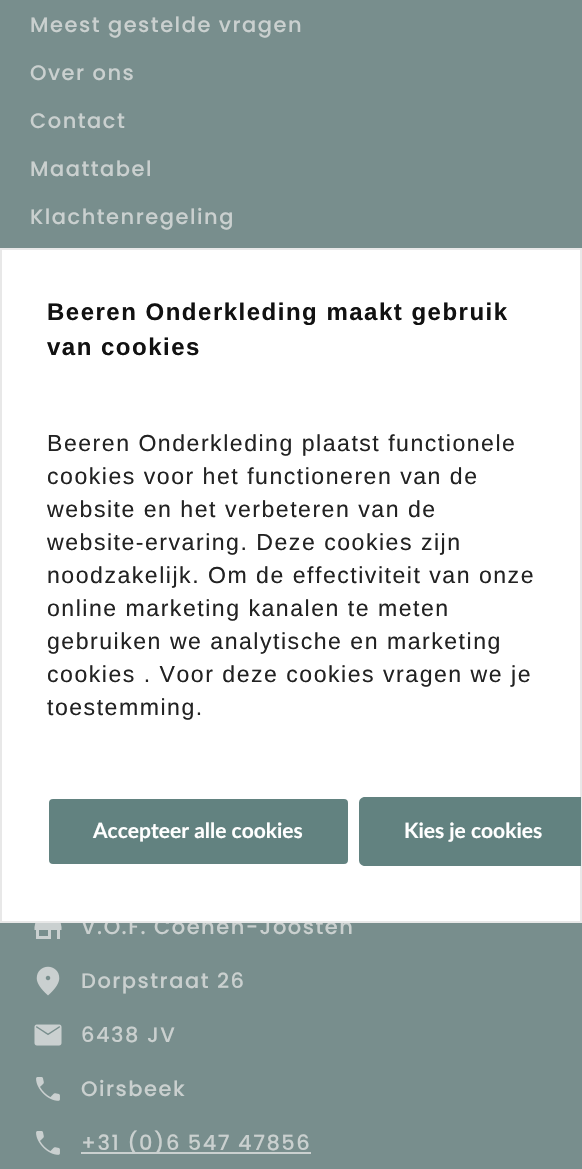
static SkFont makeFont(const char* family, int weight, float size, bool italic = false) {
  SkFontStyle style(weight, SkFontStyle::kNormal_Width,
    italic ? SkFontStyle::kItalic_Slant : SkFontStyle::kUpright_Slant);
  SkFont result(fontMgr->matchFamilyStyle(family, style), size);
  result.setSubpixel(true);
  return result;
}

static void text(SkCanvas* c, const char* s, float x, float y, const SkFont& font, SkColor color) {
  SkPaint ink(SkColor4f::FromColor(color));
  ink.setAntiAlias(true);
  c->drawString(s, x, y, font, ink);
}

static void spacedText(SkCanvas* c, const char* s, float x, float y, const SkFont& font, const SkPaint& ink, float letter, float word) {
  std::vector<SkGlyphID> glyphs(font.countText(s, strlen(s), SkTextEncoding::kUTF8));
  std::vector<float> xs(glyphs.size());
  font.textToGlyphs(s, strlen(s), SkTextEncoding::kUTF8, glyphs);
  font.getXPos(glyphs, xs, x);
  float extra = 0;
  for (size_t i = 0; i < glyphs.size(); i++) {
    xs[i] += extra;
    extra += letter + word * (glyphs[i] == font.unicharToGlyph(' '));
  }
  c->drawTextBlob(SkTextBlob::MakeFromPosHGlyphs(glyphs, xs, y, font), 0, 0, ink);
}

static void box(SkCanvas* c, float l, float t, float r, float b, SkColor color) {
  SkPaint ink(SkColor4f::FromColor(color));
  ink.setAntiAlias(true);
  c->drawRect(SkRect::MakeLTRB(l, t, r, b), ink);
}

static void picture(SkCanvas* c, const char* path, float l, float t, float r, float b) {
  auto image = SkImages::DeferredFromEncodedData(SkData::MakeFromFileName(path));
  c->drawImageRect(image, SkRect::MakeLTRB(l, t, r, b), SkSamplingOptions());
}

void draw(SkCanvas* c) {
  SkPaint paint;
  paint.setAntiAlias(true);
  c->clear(0xff788e8d);
  SkFont face1 = makeFont("Poppins", 500, 21);
  paint.setColor(0xffcad0cf);
  spacedText(c, "Meest gestelde vragen", 30, 32, face1, paint, 1.5f, 0);
  spacedText(c, "Over ons", 30, 80, face1, paint, 1.5f, 0);
  spacedText(c, "Contact", 30, 128, face1, paint, 1.5f, 0);
  spacedText(c, "Maattabel", 30, 176, face1, paint, 1.5f, 0);
  spacedText(c, "Klachtenregeling", 30, 224, face1, paint, 1.5f, 0);
  picture(c, "img_01.png", 34, 923, 62, 939);
  spacedText(c, "V.O.F. Coenen-Joosten", 81, 934, face1, paint, 1.5f, 0);
  picture(c, "img_02.png", 36, 966, 60, 996);
  spacedText(c, "Dorpstraat 26", 81, 988, face1, paint, 1.5f, 0);
  picture(c, "img_03.png", 34, 1024, 62, 1046);
  spacedText(c, "6438 JV", 81, 1042, face1, paint, 1.5f, 0);
  picture(c, "img_04.png", 36, 1077, 60, 1101);
  spacedText(c, "Oirsbeek", 81, 1096, face1, paint, 1.5f, 0);
  picture(c, "img_04.png", 36, 1131, 60, 1155);
  box(c, 81, 1152, 311, 1154, 0xffcad0cf);
  spacedText(c, "+31 (0)6 547 47856", 81, 1150, face1, paint, 1.5f, 0);
  paint.setColor(0xffffffff);
  c->drawRect(SkRect::MakeLTRB(1, 249, 581, 922), paint);
  paint.setStyle(SkPaint::kStroke_Style);
  paint.setStrokeWidth(2);
  paint.setColor(0xffe8e8e8);
  c->drawRect(SkRect::MakeLTRB(1, 249, 581, 922), paint);
  SkFont face2 = makeFont("Liberation Sans", 700, 24);
  paint.setStyle(SkPaint::kFill_Style);
  paint.setColor(0xff111111);
  spacedText(c, "Beeren Onderkleding maakt gebruik", 47, 320, face2, paint, 1.5f, 0);
  spacedText(c, "van cookies", 47, 355, face2, paint, 1.5f, 0);
  SkFont face3 = makeFont("Liberation Sans", 400, 23.1f);
  paint.setColor(0xff222222);
  spacedText(c, "Beeren Onderkleding plaatst functionele", 47, 451, face3, paint, 1.5f, 0);
  spacedText(c, "cookies voor het functioneren van de", 47, 484, face3, paint, 1.5f, 0);
  c->save();
  c->clipRect(SkRect::MakeLTRB(47, 398, 536, 755));
  spacedText(c, "website en het verbeteren van de", 47, 517, face3, paint, 1.5f, 0);
  spacedText(c, "website-ervaring. Deze cookies zijn", 47, 550, face3, paint, 1.5f, 0);
  c->restore();
  spacedText(c, "noodzakelijk. Om de effectiviteit van onze", 47, 583, face3, paint, 1.5f, 0);
  spacedText(c, "online marketing kanalen te meten", 47, 616, face3, paint, 1.5f, 0);
  spacedText(c, "gebruiken we analytische en marketing", 47, 649, face3, paint, 1.5f, 0);
  spacedText(c, "cookies . Voor deze cookies vragen we je", 47, 682, face3, paint, 1.5f, 0);
  spacedText(c, "toestemming.", 47, 715, face3, paint, 1.5f, 0);
  paint.setColor(0xff628280);
  c->drawRoundRect(SkRect::MakeLTRB(48, 798, 349, 865), 5, 5, paint);
  paint.setStyle(SkPaint::kStroke_Style);
  paint.setColor(0xffffffff);
  c->drawRoundRect(SkRect::MakeLTRB(48, 798, 349, 865), 5, 5, paint);
  SkFont face4 = makeFont("Lato", 700, 21);
  text(c, "Accepteer alle cookies", 93, 838, face4, 0xffffffff);
  paint.setStyle(SkPaint::kFill_Style);
  paint.setColor(0xff628280);
  c->drawPath(SkPathBuilder().moveTo(365, 797).lineTo(581, 797).lineTo(581, 866).lineTo(365, 866).cubicTo(361.5f, 866, 359, 863.5f, 359, 860).lineTo(359, 803).cubicTo(359, 799.5f, 361.5f, 797, 365, 797).close().detach(), paint);
  text(c, "Kies je cookies", 404, 838, face4, 0xffffffff);
}
